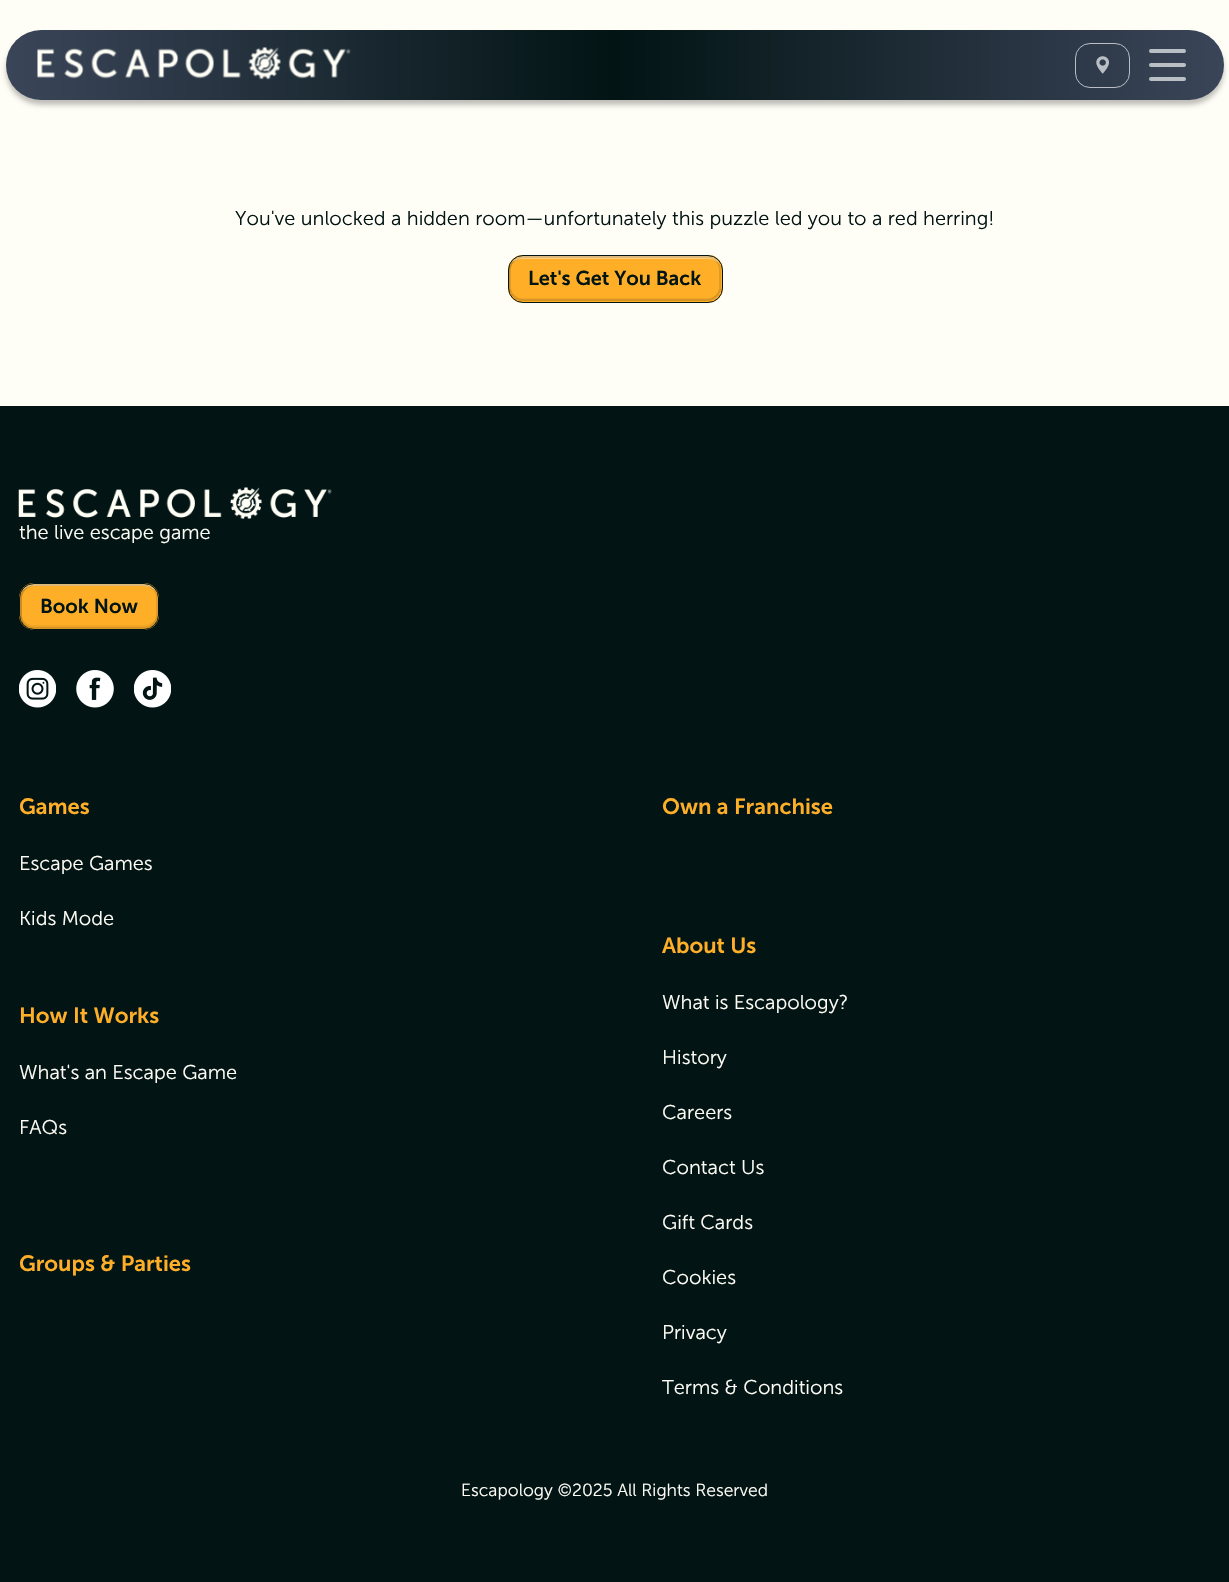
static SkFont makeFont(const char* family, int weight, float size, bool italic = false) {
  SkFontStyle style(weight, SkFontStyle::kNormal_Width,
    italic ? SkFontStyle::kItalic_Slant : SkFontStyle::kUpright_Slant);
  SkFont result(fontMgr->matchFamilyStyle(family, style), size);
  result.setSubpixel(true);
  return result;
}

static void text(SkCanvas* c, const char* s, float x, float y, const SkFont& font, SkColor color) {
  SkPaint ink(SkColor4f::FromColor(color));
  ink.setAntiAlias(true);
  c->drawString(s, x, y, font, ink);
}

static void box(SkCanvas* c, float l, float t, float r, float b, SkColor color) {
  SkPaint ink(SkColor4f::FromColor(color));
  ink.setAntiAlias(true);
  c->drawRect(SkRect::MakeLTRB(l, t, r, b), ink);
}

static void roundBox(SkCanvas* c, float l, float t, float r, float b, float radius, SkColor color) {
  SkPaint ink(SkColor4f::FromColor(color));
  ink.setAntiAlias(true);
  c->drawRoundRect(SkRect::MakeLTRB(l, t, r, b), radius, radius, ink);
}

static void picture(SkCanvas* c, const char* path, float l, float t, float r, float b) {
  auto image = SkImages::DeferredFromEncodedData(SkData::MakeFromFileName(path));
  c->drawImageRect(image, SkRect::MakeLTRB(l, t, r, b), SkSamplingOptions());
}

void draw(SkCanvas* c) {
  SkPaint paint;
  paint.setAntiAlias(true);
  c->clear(0xfffffef6);
  paint.setColor(0x40000000);
  paint.setMaskFilter(SkMaskFilter::MakeBlur(kNormal_SkBlurStyle, 2.5f));
  c->drawRoundRect(SkRect::MakeLTRB(6, 35, 1224, 105), 35, 35, paint);
  paint.setMaskFilter(nullptr);
  {
    const SkColor colors[] = {0xff3b4559, 0xff021414, 0xff3b4559};
    const float stops[] = {0, 0.5f, 1};
    const SkPoint ends[] = {{6.2f, 65}, {1224, 65}};
    paint.setShader(SkGradientShader::MakeLinear(ends, colors, stops, 3, SkTileMode::kClamp));
    paint.setAlpha(255);
  }
  c->drawRoundRect(SkRect::MakeLTRB(6, 30, 1224, 100), 35, 35, paint);
  picture(c, "img_01.png", 37, 47, 351, 80);
  paint.setStyle(SkPaint::kStroke_Style);
  paint.setStrokeWidth(1);
  paint.setShader(nullptr);
  paint.setColor(0xffbabec5);
  c->drawRoundRect(SkRect::MakeLTRB(1075.5f, 43.5f, 1129.5f, 87.5f), 14.5f, 14.5f, paint);
  picture(c, "img_02.png", 1096, 56, 1109, 74);
  roundBox(c, 1149, 49, 1186, 53, 2, 0xffbabec5);
  roundBox(c, 1149, 63, 1186, 67, 2, 0xffbabec5);
  roundBox(c, 1149, 77, 1186, 81, 2, 0xffbabec5);
  SkFont face1 = makeFont("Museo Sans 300", 300, 20);
  text(c, "You've unlocked a hidden room—unfortunately this puzzle led you to a red herring!", 235, 225, face1, 0xff021414);
  roundBox(c, 508, 255, 723, 303, 15, 0xffffaf27);
  paint.setStrokeWidth(2);
  paint.setColor(0xffe19c27);
  c->drawRoundRect(SkRect::MakeLTRB(510, 257, 720, 300), 13, 13, paint);
  paint.setStyle(SkPaint::kFill_Style);
  paint.setColor(0x1a000000);
  c->drawPath(SkPathBuilder().moveTo(524, 258).lineTo(709, 258).cubicTo(712, 258, 715, 259, 717, 261).cubicTo(715, 258, 711, 256, 707, 256).lineTo(523, 256).cubicTo(515, 256, 509, 262, 509, 270).lineTo(509, 287).cubicTo(509, 290, 510, 292, 511, 294).lineTo(510, 289).lineTo(510, 272).cubicTo(510, 264, 516, 258, 524, 258).close().detach(), paint);
  paint.setColor(0x66fbfbfb);
  c->drawPath(SkPathBuilder().moveTo(522, 259).lineTo(708, 259).cubicTo(713, 259, 717, 261, 720, 264).cubicTo(717, 259, 713, 256, 707, 256).lineTo(523, 256).cubicTo(517, 256, 513, 259, 510, 264).cubicTo(513, 261, 517, 259, 522, 259).close().detach(), paint);
  paint.setColor(0x0d000000);
  c->drawPath(SkPathBuilder().moveTo(509, 284).lineTo(509, 287).cubicTo(509, 295, 515, 301, 523, 301).lineTo(707, 301).cubicTo(715, 301, 721, 295, 721, 287).lineTo(721, 284).cubicTo(721, 291, 715, 298, 708, 298).lineTo(522, 298).cubicTo(515, 298, 509, 291, 509, 284).close().detach(), paint);
  paint.setStyle(SkPaint::kStroke_Style);
  paint.setStrokeWidth(1);
  paint.setColor(0xff021414);
  c->drawRoundRect(SkRect::MakeLTRB(508.5f, 255.5f, 722.5f, 302.5f), 14.5f, 14.5f, paint);
  SkFont face2 = makeFont("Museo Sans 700", 600, 20);
  text(c, "Let's Get You Back", 528, 285, face2, 0xff021414);
  box(c, 0, 406, 1229, 1582, 0xff021414);
  picture(c, "img_03.png", 18, 487, 332, 519);
  text(c, "the live escape game", 19, 539, face1, 0xfffffef6);
  roundBox(c, 19, 583, 159, 630, 15, 0xffffaf27);
  paint.setStrokeWidth(2);
  paint.setColor(0xffe19c27);
  c->drawRoundRect(SkRect::MakeLTRB(21, 585, 157, 628), 13, 13, paint);
  paint.setStyle(SkPaint::kFill_Style);
  paint.setColor(0x1a000000);
  c->drawPath(SkPathBuilder().moveTo(35, 586).lineTo(145, 586).cubicTo(150, 586, 154, 588, 156, 591).cubicTo(154, 587, 149, 584, 144, 584).lineTo(34, 584).cubicTo(26, 584, 20, 590, 20, 598).lineTo(20, 615).cubicTo(20, 619, 22, 623, 25, 626).cubicTo(23, 623, 22, 620, 22, 617).lineTo(22, 599).cubicTo(22, 592, 28, 586, 35, 586).close().detach(), paint);
  paint.setColor(0x66fbfbfb);
  c->drawPath(SkPathBuilder().moveTo(34, 586).lineTo(144, 586).cubicTo(149, 586, 153, 588, 157, 592).cubicTo(154, 587, 150, 584, 144, 584).lineTo(34, 584).cubicTo(29, 584, 24, 587, 22, 591).cubicTo(25, 588, 29, 586, 34, 586).close().detach(), paint);
  paint.setColor(0x0d000000);
  c->drawPath(SkPathBuilder().moveTo(20, 611).cubicTo(20, 633, 35, 629, 52, 629).lineTo(126, 629).cubicTo(143, 629, 158, 633, 158, 611).cubicTo(158, 619, 151, 625, 144, 625).lineTo(34, 625).cubicTo(26, 625, 20, 619, 20, 611).close().detach(), paint);
  paint.setStyle(SkPaint::kStroke_Style);
  paint.setStrokeWidth(1);
  paint.setColor(0xff021414);
  c->drawRoundRect(SkRect::MakeLTRB(19.5f, 583.5f, 158.5f, 629.5f), 14.5f, 14.5f, paint);
  text(c, "Book Now", 40, 613, face2, 0xff021414);
  picture(c, "img_04.png", 19, 670, 56, 708);
  picture(c, "img_05.png", 76, 670, 114, 708);
  picture(c, "img_06.png", 134, 670, 171, 708);
  SkFont face3 = makeFont("Museo Sans 700", 600, 22);
  text(c, "Games", 19, 814, face3, 0xffffaf27);
  text(c, "Escape Games", 19, 870, face1, 0xfffffef6);
  text(c, "Kids Mode", 19, 925, face1, 0xfffffef6);
  text(c, "How It Works", 19, 1023, face3, 0xffffaf27);
  text(c, "What's an Escape Game", 19, 1079, face1, 0xfffffef6);
  text(c, "FAQs", 19, 1134, face1, 0xfffffef6);
  text(c, "Groups & Parties", 19, 1271, face3, 0xffffaf27);
  text(c, "Own a Franchise", 662, 814, face3, 0xffffaf27);
  text(c, "About Us", 662, 953, face3, 0xffffaf27);
  text(c, "What is Escapology?", 662, 1009, face1, 0xfffffef6);
  text(c, "History", 662, 1064, face1, 0xfffffef6);
  text(c, "Careers", 662, 1119, face1, 0xfffffef6);
  text(c, "Contact Us", 662, 1174, face1, 0xfffffef6);
  text(c, "Gift Cards", 662, 1229, face1, 0xfffffef6);
  text(c, "Cookies", 662, 1284, face1, 0xfffffef6);
  text(c, "Privacy", 662, 1339, face1, 0xfffffef6);
  text(c, "Terms & Conditions", 662, 1394, face1, 0xfffffef6);
  SkFont face4 = makeFont("Museo Sans 300", 300, 17.5f);
  text(c, "Escapology ©2025 All Rights Reserved", 461, 1496, face4, 0xfffffef6);
}
